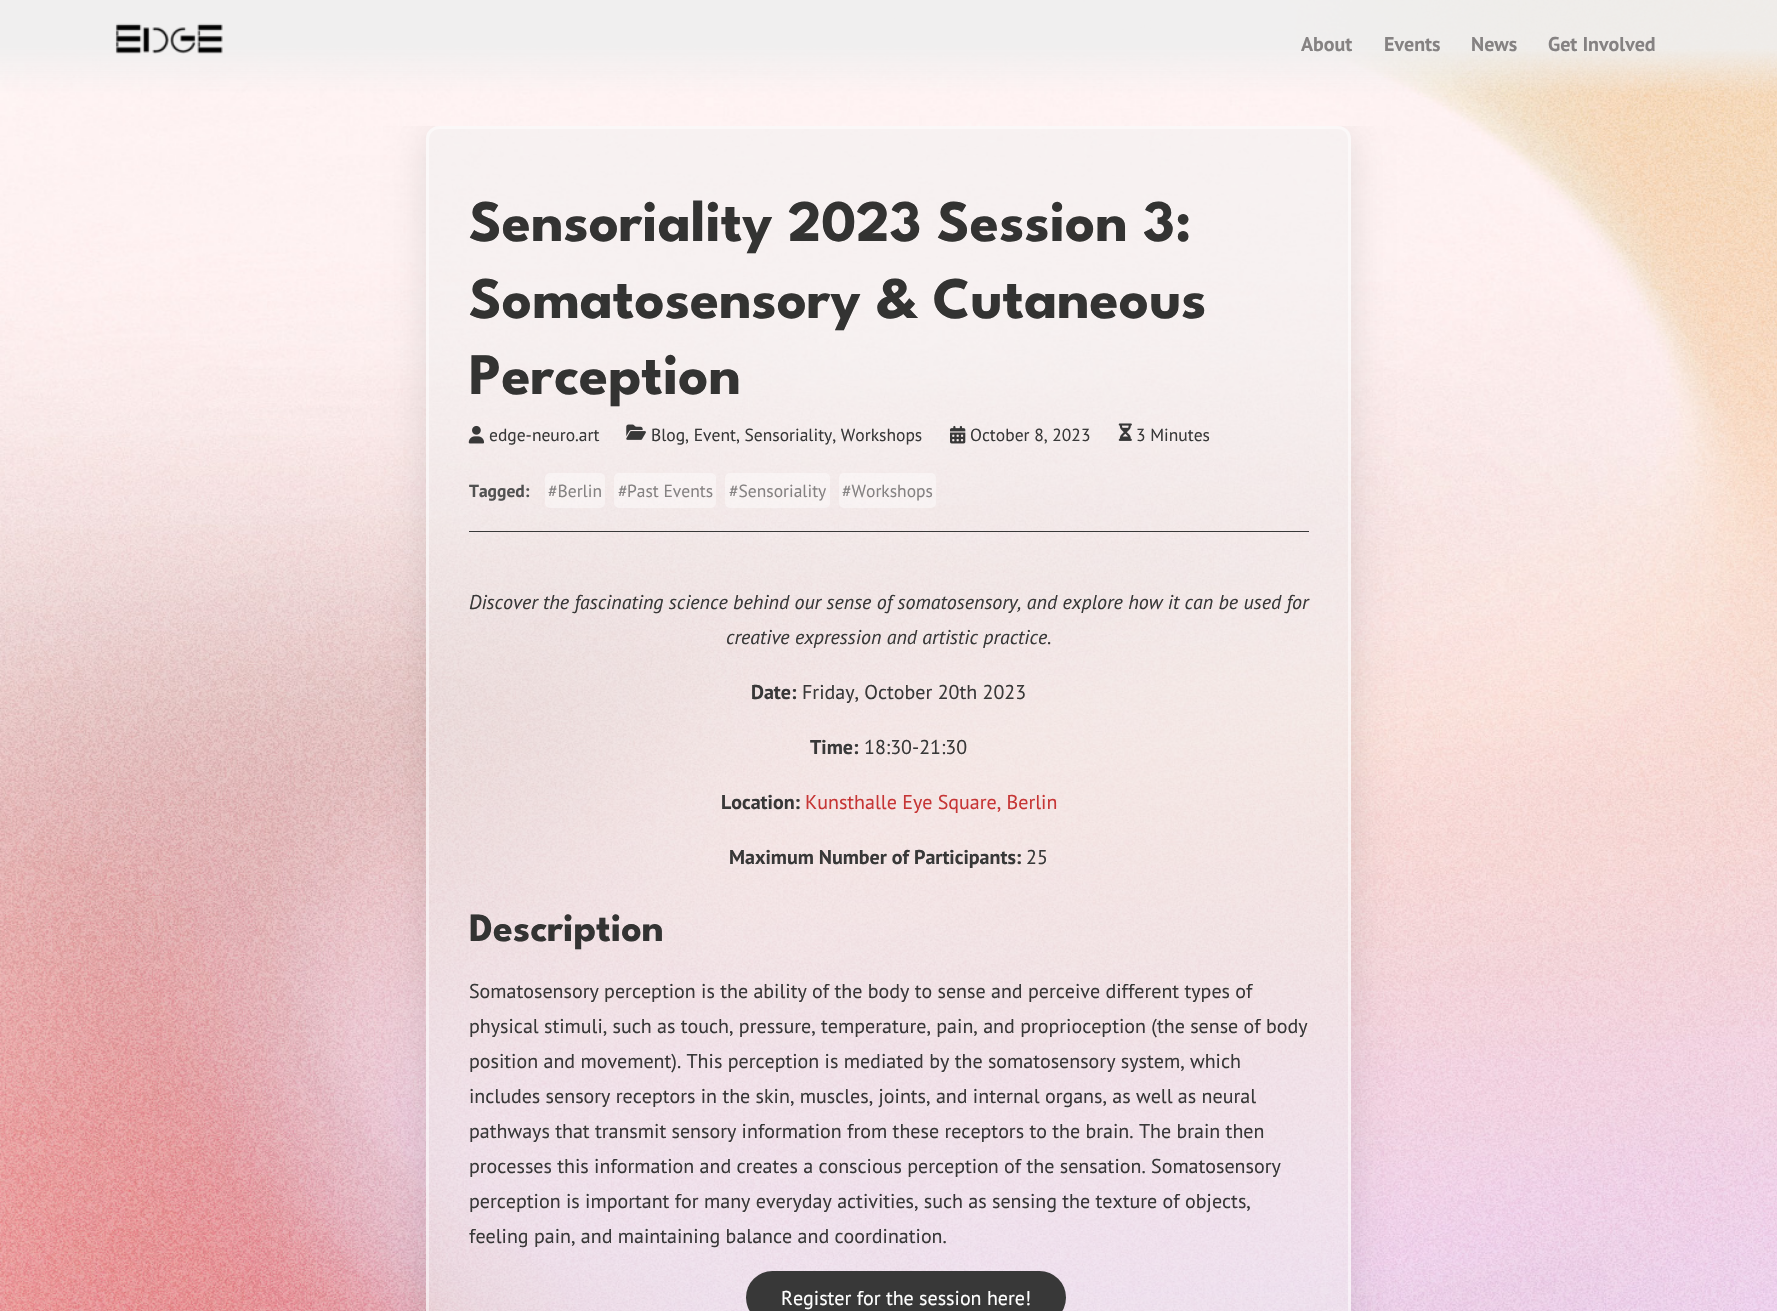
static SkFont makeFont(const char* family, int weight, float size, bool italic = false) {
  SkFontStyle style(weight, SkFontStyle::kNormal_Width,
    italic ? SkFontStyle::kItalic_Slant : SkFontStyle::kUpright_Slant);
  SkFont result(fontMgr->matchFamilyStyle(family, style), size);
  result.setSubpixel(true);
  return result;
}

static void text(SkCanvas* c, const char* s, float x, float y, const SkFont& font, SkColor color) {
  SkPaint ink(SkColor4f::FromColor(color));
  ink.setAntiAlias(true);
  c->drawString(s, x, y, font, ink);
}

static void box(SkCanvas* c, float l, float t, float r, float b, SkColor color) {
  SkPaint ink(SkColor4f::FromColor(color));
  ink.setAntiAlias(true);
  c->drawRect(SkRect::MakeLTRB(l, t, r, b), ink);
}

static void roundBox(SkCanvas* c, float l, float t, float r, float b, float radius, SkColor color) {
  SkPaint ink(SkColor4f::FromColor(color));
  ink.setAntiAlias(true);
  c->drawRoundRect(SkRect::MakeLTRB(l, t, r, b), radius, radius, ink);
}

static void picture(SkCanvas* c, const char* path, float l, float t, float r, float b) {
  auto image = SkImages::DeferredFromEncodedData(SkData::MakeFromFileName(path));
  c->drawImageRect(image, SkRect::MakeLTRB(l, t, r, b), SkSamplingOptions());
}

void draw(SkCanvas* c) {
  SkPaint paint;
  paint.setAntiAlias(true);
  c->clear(0xffffffff);
  picture(c, "img_01.png", 0, 0, 1777, 1311);
  picture(c, "img_02.png", 115, 23, 223, 54);
  SkFont face1 = makeFont("PT Sans", 700, 20);
  text(c, "About", 1301, 51, face1, 0xff858282);
  text(c, "Events", 1384, 51, face1, 0xff858282);
  text(c, "News", 1471, 51, face1, 0xff858282);
  text(c, "Get Involved", 1548, 51, face1, 0xff858282);
  c->save();
  c->clipRect(SkRect::MakeLTRB(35, 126, 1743, 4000));
  c->clipPath(SkPathBuilder(SkPathFillType::kEvenOdd).moveTo(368, 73).lineTo(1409, 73).lineTo(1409, 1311).lineTo(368, 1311).close().moveTo(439, 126).lineTo(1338, 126).cubicTo(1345, 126, 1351, 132, 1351, 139).lineTo(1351, 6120).cubicTo(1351, 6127, 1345, 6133, 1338, 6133).lineTo(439, 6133).cubicTo(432, 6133, 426, 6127, 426, 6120).lineTo(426, 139).cubicTo(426, 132, 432, 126, 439, 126).close().detach(), true);
  paint.setColor(0x1a000000);
  paint.setMaskFilter(SkMaskFilter::MakeBlur(kNormal_SkBlurStyle, 19));
  c->drawRoundRect(SkRect::MakeLTRB(426, 131, 1351, 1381), 13, 13, paint);
  paint.setMaskFilter(nullptr);
  c->restore();
  roundBox(c, 426, 126, 1351, 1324, 13, 0x80efefef);
  paint.setStyle(SkPaint::kStroke_Style);
  paint.setStrokeWidth(3);
  paint.setColor(0x80ffffff);
  c->drawRoundRect(SkRect::MakeLTRB(427.5f, 127.5f, 1349.5f, 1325.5f), 11.5f, 11.5f, paint);
  SkFont face2 = makeFont("League Spartan", 700, 58.75f);
  text(c, "Sensoriality 2023 Session 3:", 469, 241, face2, 0xff333332);
  text(c, "Somatosensory & Cutaneous", 469, 318, face2, 0xff333332);
  text(c, "Perception", 469, 394, face2, 0xff333332);
  box(c, 469, 531, 1309, 532, 0xff383838);
  picture(c, "img_03.png", 468, 425, 485, 444);
  SkFont face3 = makeFont("PT Sans", 400, 17.5f);
  text(c, "edge-neuro.art", 489, 441, face3, 0xff383838);
  picture(c, "img_04.png", 626, 424, 646, 440);
  text(c, "Blog, Event, Sensoriality, Workshops", 651, 441, face3, 0xff383838);
  picture(c, "img_05.png", 950, 425, 966, 444);
  text(c, "October 8, 2023", 970, 441, face3, 0xff383838);
  picture(c, "img_06.png", 1118, 423, 1132, 441);
  text(c, "3 Minutes", 1136, 441, face3, 0xff383838);
  SkFont face4 = makeFont("PT Sans", 700, 17.5f);
  text(c, "Tagged:", 469, 497, face4, 0xff515151);
  roundBox(c, 545, 473, 605, 508, 5, 0x6bffffff);
  text(c, "#Berlin", 548, 497, face3, 0xff858282);
  roundBox(c, 614, 473, 716, 508, 5, 0x6bffffff);
  text(c, "#", 618, 497, face3, 0xff858282);
  text(c, "Past Events", 627, 497, face3, 0xff858282);
  roundBox(c, 725, 473, 830, 508, 5, 0x6bffffff);
  text(c, "#Sensoriality", 729, 497, face3, 0xff858282);
  roundBox(c, 839, 473, 936, 508, 5, 0x6bffffff);
  text(c, "#Workshops", 842, 497, face3, 0xff858282);
  SkFont face5 = makeFont("PT Sans", 400, 20, true);
  text(c, "Discover the fascinating science behind our sense of somatosensory, and explore how it can be used for", 469, 609, face5, 0xff383838);
  text(c, "creative expression and artistic practice.", 726, 644, face5, 0xff383838);
  text(c, "Date:", 751, 699, face1, 0xff383838);
  SkFont face6 = makeFont("PT Sans", 400, 20);
  text(c, "Friday, October 20th 2023", 802, 699, face6, 0xff383838);
  text(c, "Time:", 810, 754, face1, 0xff383838);
  text(c, "18:30-21:30", 864, 754, face6, 0xff383838);
  text(c, "Location:", 721, 809, face1, 0xff383838);
  text(c, "Kunsthalle Eye Square, Berlin", 805, 809, face6, 0xffc63535);
  text(c, "Maximum Number of Participants:", 729, 864, face1, 0xff383838);
  text(c, "25", 1026, 864, face6, 0xff383838);
  SkFont face7 = makeFont("League Spartan", 700, 40);
  text(c, "Description", 469, 941, face7, 0xff333332);
  text(c, "Somatosensory perception is the ability of the body to sense and perceive different types of", 469, 998, face6, 0xff383838);
  text(c, "physical stimuli, such as touch, pressure, temperature, pain, and proprioception (the sense of body", 469, 1033, face6, 0xff383838);
  text(c, "position and movement). This perception is mediated by the somatosensory system, which", 469, 1068, face6, 0xff383838);
  text(c, "includes sensory receptors in the skin, muscles, joints, and internal organs, as well as neural", 469, 1103, face6, 0xff383838);
  text(c, "pathways that transmit sensory information from these receptors to the brain. The brain then", 469, 1138, face6, 0xff383838);
  text(c, "processes this information and creates a conscious perception of the sensation. Somatosensory", 469, 1173, face6, 0xff383838);
  text(c, "perception is important for many everyday activities, such as sensing the texture of objects,", 469, 1208, face6, 0xff383838);
  text(c, "feeling pain, and maintaining balance and coordination.", 469, 1243, face6, 0xff383838);
  roundBox(c, 746, 1271, 1066, 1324, 26.5f, 0xff383838);
  text(c, "Register for the session here!", 781, 1305, face6, 0xffffffff);
}
